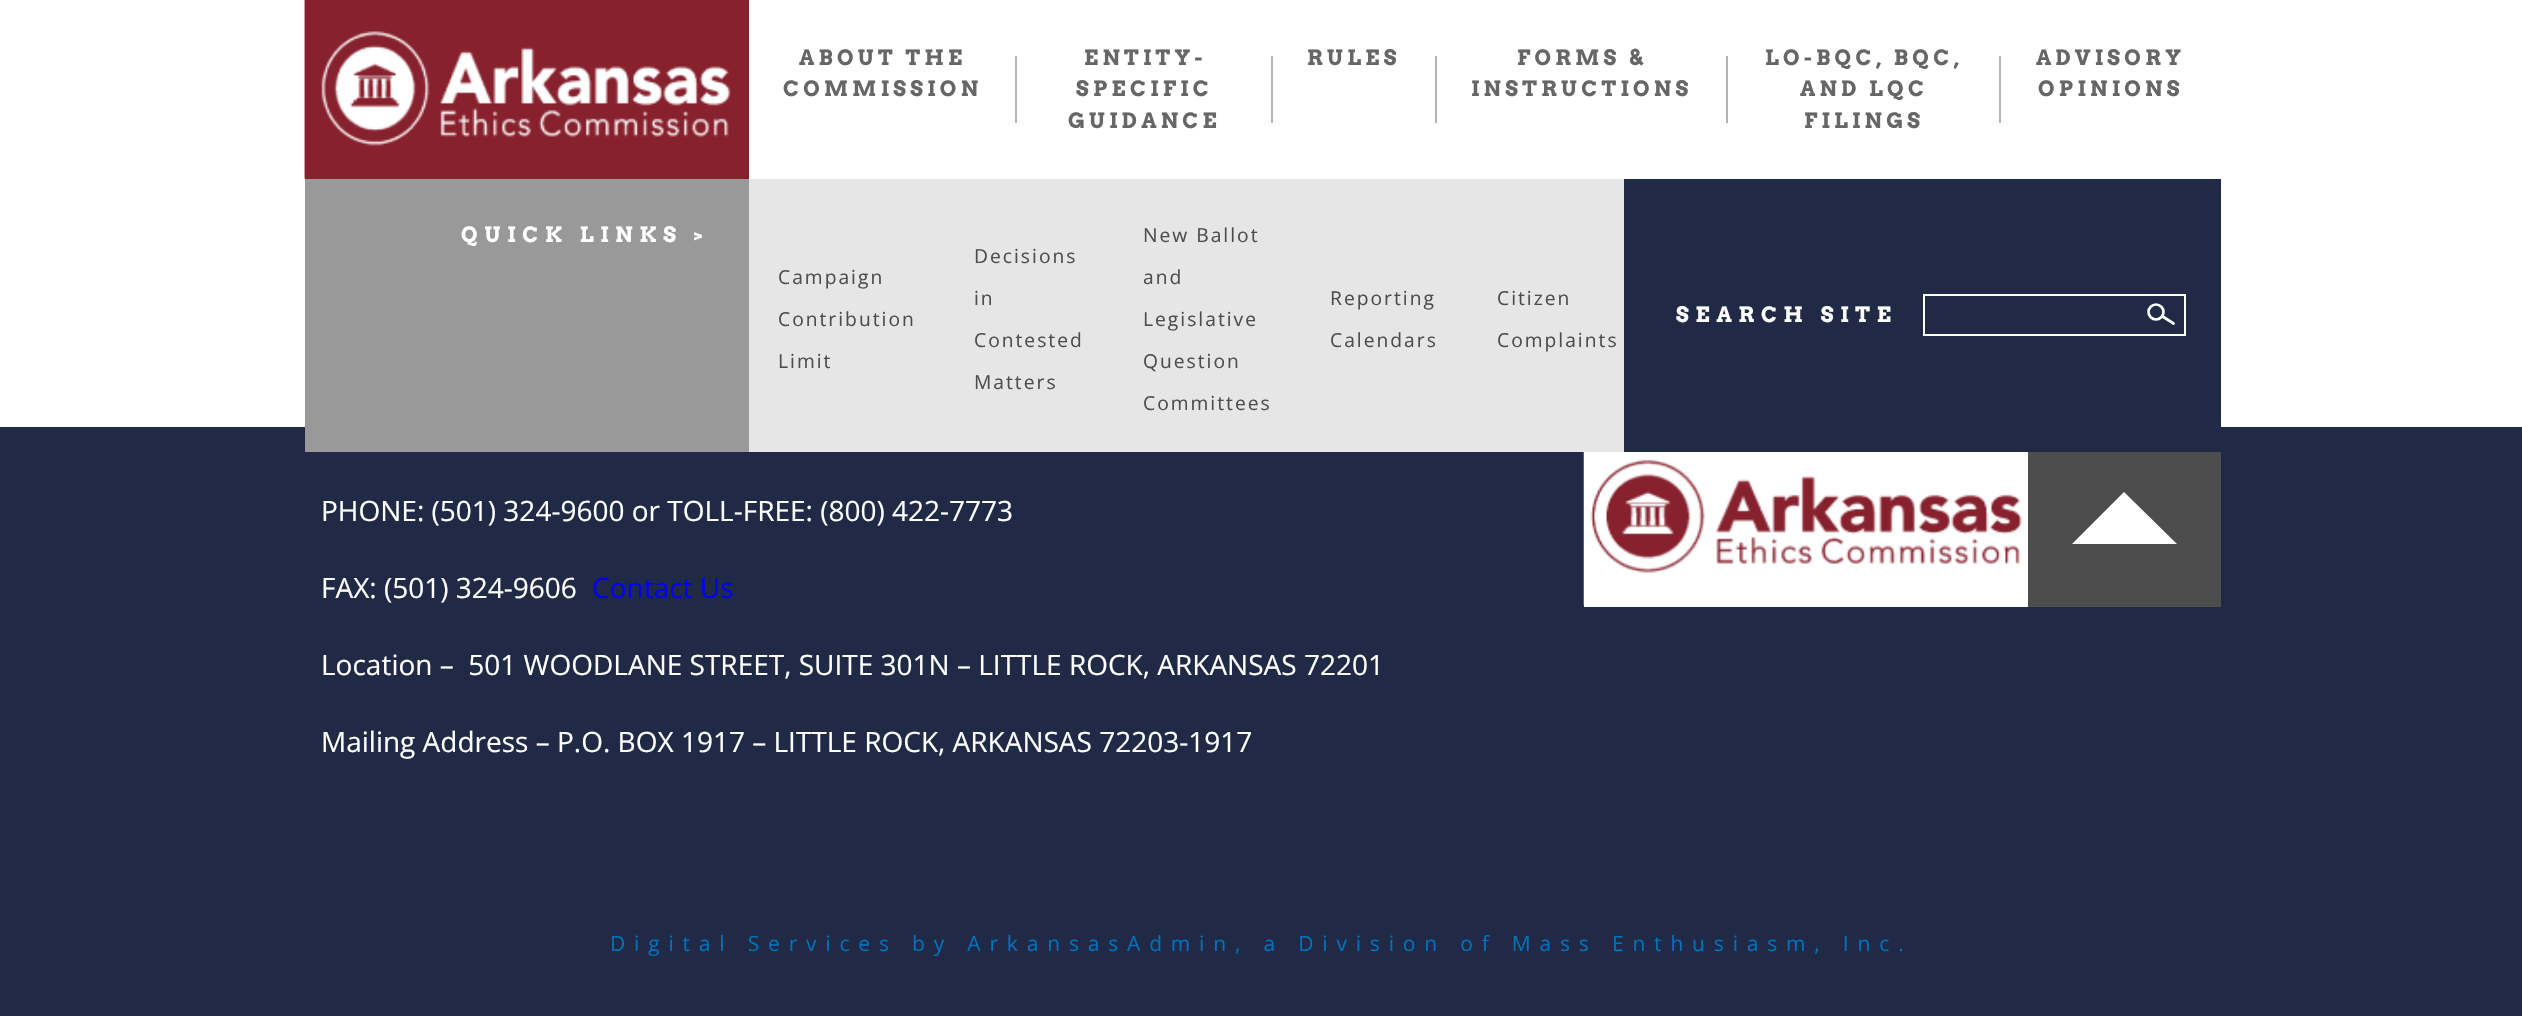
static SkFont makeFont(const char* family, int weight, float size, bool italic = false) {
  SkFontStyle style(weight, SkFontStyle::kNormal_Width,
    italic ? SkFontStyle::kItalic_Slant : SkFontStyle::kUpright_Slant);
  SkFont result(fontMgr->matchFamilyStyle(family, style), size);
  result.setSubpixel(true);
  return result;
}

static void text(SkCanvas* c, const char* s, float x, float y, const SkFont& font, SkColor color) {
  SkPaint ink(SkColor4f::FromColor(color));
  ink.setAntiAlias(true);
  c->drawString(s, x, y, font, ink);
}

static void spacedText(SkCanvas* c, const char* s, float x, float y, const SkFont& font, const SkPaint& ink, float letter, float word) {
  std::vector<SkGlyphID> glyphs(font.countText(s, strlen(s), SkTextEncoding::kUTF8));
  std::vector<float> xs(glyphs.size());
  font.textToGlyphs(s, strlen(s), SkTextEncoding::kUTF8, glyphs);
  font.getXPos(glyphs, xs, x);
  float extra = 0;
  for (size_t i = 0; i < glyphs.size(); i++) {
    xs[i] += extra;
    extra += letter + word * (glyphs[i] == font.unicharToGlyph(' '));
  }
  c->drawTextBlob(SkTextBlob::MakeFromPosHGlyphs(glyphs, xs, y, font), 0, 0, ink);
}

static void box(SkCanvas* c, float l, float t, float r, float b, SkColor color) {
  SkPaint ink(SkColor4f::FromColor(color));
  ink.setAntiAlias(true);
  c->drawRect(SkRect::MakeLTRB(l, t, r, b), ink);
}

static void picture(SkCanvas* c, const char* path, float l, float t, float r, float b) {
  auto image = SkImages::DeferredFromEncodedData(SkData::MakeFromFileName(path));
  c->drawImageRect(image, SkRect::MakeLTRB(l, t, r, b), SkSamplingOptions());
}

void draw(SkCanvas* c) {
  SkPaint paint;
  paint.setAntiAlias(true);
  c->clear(0xffffffff);
  box(c, 305, 178, 749, 179, 0xff7f2629);
  picture(c, "img_01.png", 304, 0, 749, 179);
  SkFont face1 = makeFont("Arvo", 700, 21);
  paint.setColor(0xff666666);
  spacedText(c, "ABOUT THE", 799, 65, face1, paint, 4.25f, 0);
  spacedText(c, "COMMISSION", 783, 96, face1, paint, 4.25f, 0);
  box(c, 1015, 56, 1017, 123, 0xffb3b3b3);
  spacedText(c, "ENTITY-", 1084, 65, face1, paint, 4.25f, 0);
  spacedText(c, "SPECIFIC", 1076, 96, face1, paint, 4.25f, 0);
  spacedText(c, "GUIDANCE", 1068, 128, face1, paint, 4.25f, 0);
  box(c, 1271, 56, 1273, 123, 0xffb3b3b3);
  spacedText(c, "RULES", 1307, 65, face1, paint, 4.25f, 0);
  box(c, 1435, 56, 1437, 123, 0xffb3b3b3);
  spacedText(c, "FORMS &", 1517, 65, face1, paint, 4.25f, 0);
  spacedText(c, "INSTRUCTIONS", 1471, 96, face1, paint, 4.25f, 0);
  box(c, 1726, 56, 1728, 123, 0xffb3b3b3);
  spacedText(c, "LO-BQC, BQC,", 1765, 65, face1, paint, 4.25f, 0);
  spacedText(c, "AND LQC", 1800, 96, face1, paint, 4.25f, 0);
  spacedText(c, "FILINGS", 1804, 128, face1, paint, 4.25f, 0);
  box(c, 1999, 56, 2001, 123, 0xffb3b3b3);
  spacedText(c, "ADVISORY", 2036, 65, face1, paint, 4.25f, 0);
  spacedText(c, "OPINIONS", 2038, 96, face1, paint, 4.25f, 0);
  box(c, 0, 427, 2522, 1016, 0xff202945);
  box(c, 305, 179, 749, 452, 0xff999999);
  paint.setColor(0xffffffff);
  spacedText(c, "QUICK LINKS >", 461, 242, face1, paint, 6.75f, 0);
  box(c, 749, 179, 1624, 452, 0xffe6e6e6);
  SkFont face2 = makeFont("Open Sans", 400, 19.25f);
  paint.setColor(0xff4d4d4d);
  spacedText(c, "Campaign", 778, 284, face2, paint, 2, 0);
  spacedText(c, "Contribution", 778, 326, face2, paint, 2, 0);
  spacedText(c, "Limit", 778, 368, face2, paint, 2, 0);
  spacedText(c, "Decisions", 974, 263, face2, paint, 2, 0);
  spacedText(c, "in", 974, 305, face2, paint, 2, 0);
  spacedText(c, "Contested", 974, 347, face2, paint, 2, 0);
  spacedText(c, "Matters", 974, 389, face2, paint, 2, 0);
  spacedText(c, "New Ballot", 1143, 242, face2, paint, 2, 0);
  spacedText(c, "and", 1143, 284, face2, paint, 2, 0);
  spacedText(c, "Legislative", 1143, 326, face2, paint, 2, 0);
  spacedText(c, "Question", 1143, 368, face2, paint, 2, 0);
  spacedText(c, "Committees", 1143, 410, face2, paint, 2, 0);
  spacedText(c, "Reporting", 1330, 305, face2, paint, 2, 0);
  spacedText(c, "Calendars", 1330, 347, face2, paint, 2, 0);
  spacedText(c, "Citizen", 1497, 305, face2, paint, 2, 0);
  spacedText(c, "Complaints", 1497, 347, face2, paint, 2, 0);
  box(c, 1624, 179, 2221, 427, 0xff202945);
  paint.setColor(0xffffffff);
  spacedText(c, "SEARCH SITE", 1676, 322, face1, paint, 6.75f, 0);
  paint.setStyle(SkPaint::kStroke_Style);
  paint.setStrokeWidth(2);
  c->drawRect(SkRect::MakeLTRB(1924, 295, 2185, 335), paint);
  paint.setStrokeWidth(2.7f);
  c->drawCircle(2156, 312, 7.5f, paint);
  paint.setStrokeCap(SkPaint::kRound_Cap);
  c->drawPath(SkPathBuilder().moveTo(2173.5f, 323.5f).lineTo(2163.5f, 317).detach(), paint);
  SkFont face3 = makeFont("Open Sans", 400, 28);
  text(c, "PHONE: (501) 324-9600 or TOLL-FREE: (800) 422-7773", 321, 521, face3, 0xffffffff);
  text(c, "FAX: (501) 324-9606", 321, 598, face3, 0xffffffff);
  text(c, "Contact Us", 592, 598, face3, 0xff0000ff);
  text(c, "Location –  501 WOODLANE STREET, SUITE 301N – LITTLE ROCK, ARKANSAS 72201", 321, 675, face3, 0xffffffff);
  text(c, "Mailing Address – P.O. BOX 1917 – LITTLE ROCK, ARKANSAS 72203-1917", 321, 752, face3, 0xffffffff);
  box(c, 1584, 605, 2028, 607, 0xffffffff);
  picture(c, "img_02.png", 1583, 452, 2028, 606);
  box(c, 2028, 452, 2221, 607, 0xff4d4d4d);
  paint.setStyle(SkPaint::kFill_Style);
  c->drawPath(SkPathBuilder().moveTo(2177, 544).lineTo(2072, 544).lineTo(2124, 492).close().detach(), paint);
  SkFont face4 = makeFont("Open Sans", 400, 21);
  paint.setColor(0xff0071bc);
  spacedText(c, "Digital Services by ArkansasAdmin, a Division of Mass Enthusiasm, Inc.", 610, 951, face4, paint, 8.82f, 0);
}
